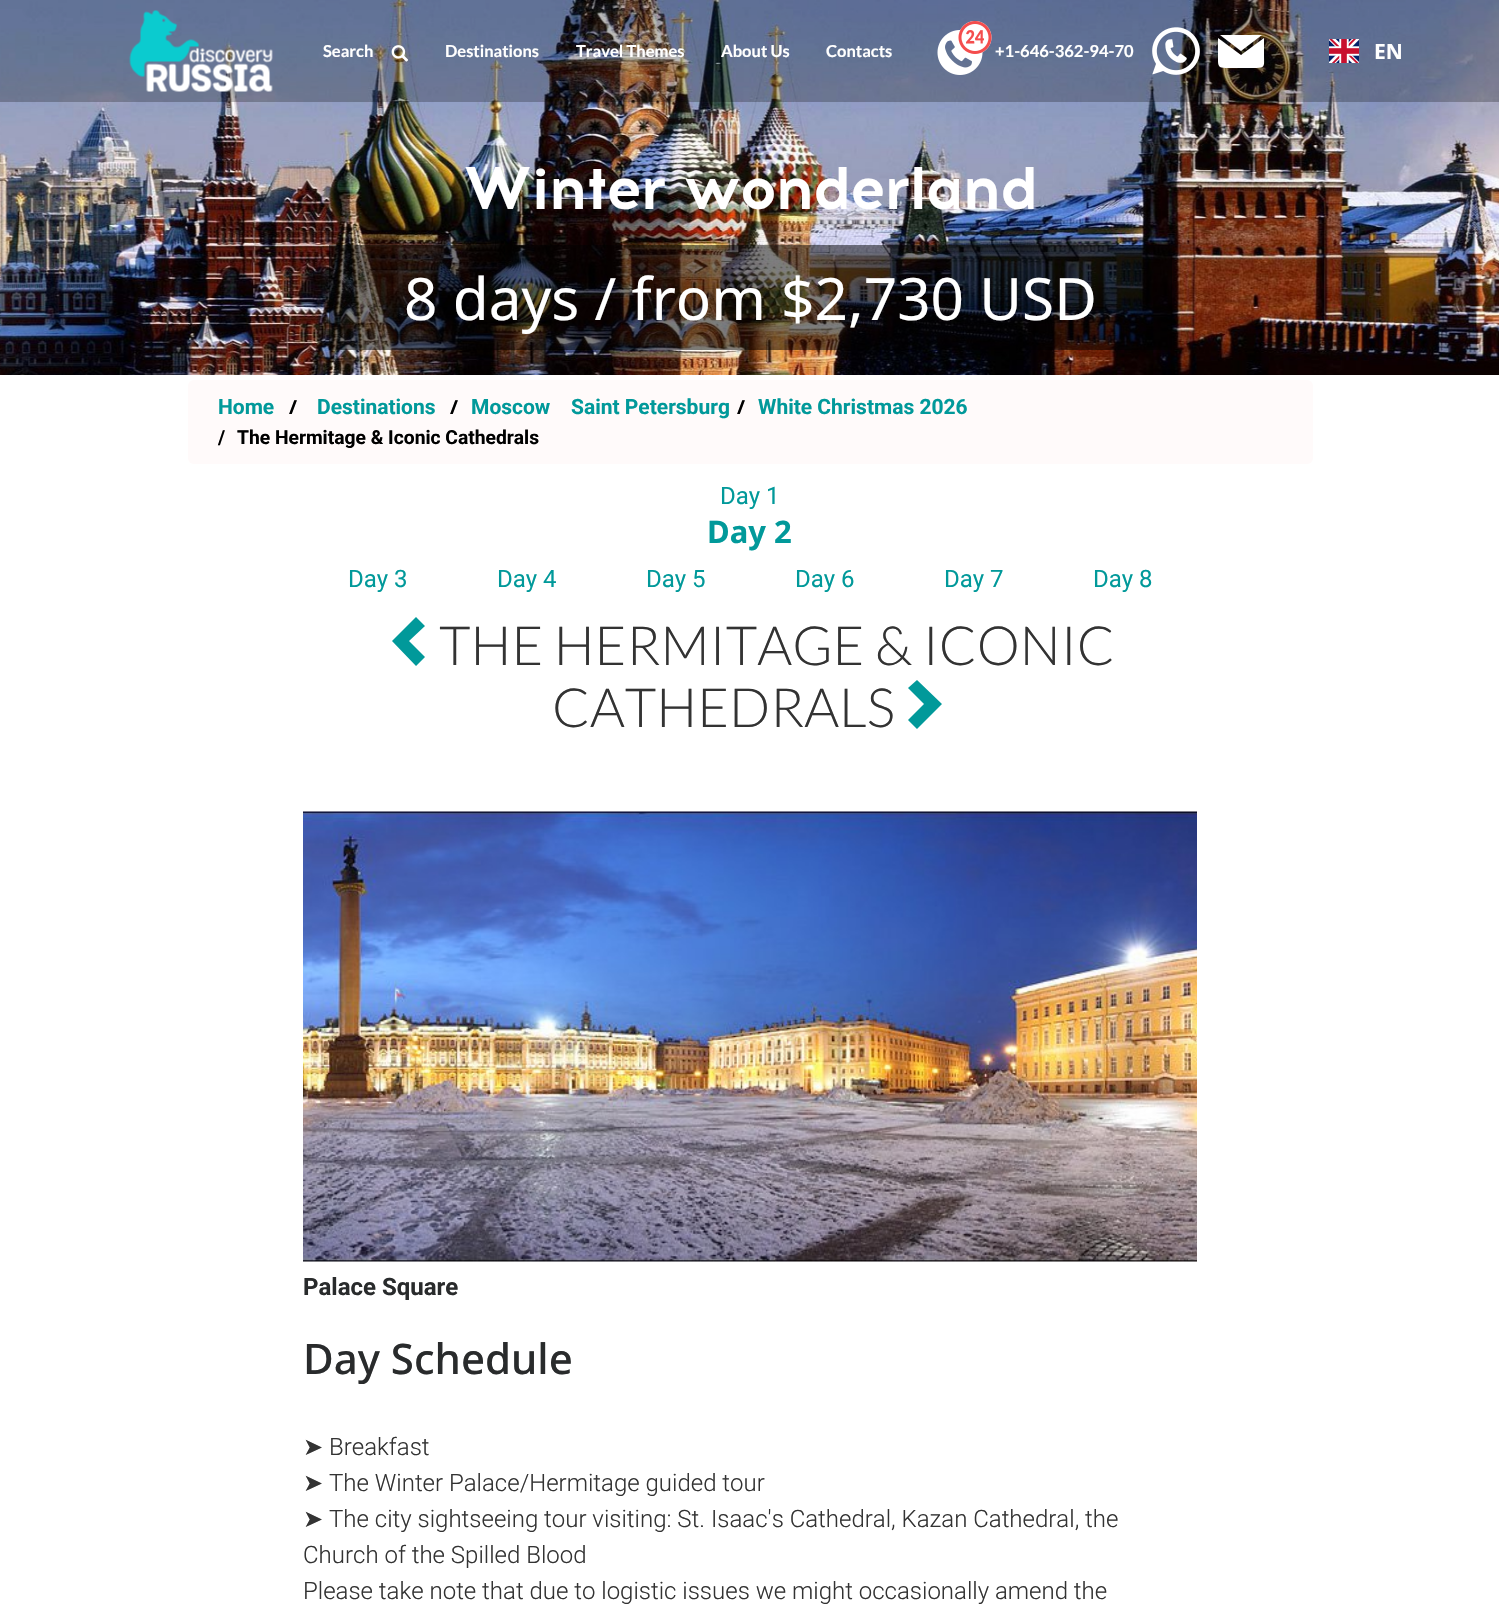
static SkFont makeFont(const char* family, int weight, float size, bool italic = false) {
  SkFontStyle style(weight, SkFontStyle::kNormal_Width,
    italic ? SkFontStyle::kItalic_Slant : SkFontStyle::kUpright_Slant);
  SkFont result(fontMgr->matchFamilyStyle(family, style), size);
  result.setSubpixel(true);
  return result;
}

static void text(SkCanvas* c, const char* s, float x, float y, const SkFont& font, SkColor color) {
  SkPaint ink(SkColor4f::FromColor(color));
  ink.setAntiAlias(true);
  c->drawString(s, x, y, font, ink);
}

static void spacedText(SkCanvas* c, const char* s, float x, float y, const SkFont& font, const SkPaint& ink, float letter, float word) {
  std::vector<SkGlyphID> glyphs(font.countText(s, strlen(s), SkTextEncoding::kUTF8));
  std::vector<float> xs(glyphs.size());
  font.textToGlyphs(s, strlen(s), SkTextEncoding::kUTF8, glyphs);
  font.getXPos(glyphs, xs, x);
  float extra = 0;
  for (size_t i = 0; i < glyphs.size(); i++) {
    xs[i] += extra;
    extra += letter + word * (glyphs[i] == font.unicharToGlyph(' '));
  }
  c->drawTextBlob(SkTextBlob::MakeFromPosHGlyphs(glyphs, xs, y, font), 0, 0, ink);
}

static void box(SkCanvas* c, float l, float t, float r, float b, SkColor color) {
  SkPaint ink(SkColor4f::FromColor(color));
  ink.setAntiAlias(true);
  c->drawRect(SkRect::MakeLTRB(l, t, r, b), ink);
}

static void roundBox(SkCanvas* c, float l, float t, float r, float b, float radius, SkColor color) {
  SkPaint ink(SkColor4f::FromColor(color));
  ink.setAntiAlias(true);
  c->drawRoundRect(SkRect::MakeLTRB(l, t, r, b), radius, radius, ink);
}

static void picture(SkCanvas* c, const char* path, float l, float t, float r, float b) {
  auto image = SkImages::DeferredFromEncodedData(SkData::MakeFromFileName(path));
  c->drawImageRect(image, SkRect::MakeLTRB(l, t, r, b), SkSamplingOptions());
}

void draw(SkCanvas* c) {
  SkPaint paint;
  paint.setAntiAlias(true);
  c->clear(0xffffffff);
  picture(c, "img_06.png", 0, 0, 1499, 375);
  box(c, 0, 0, 1499, 102, 0x40000000);
  picture(c, "img_01.png", 129, 10, 273, 92);
  SkFont face1 = makeFont("Lato", 700, 16.5f);
  text(c, "Search", 323, 57, face1, 0xffffffff);
  picture(c, "img_02.png", 391, 45, 409, 62);
  text(c, "Destinations", 445, 57, face1, 0xffffffff);
  text(c, "Travel Themes", 576, 57, face1, 0xffffffff);
  text(c, "About Us", 721, 57, face1, 0xffffffff);
  text(c, "Contacts", 826, 57, face1, 0xffffffff);
  picture(c, "img_03.png", 937, 21, 992, 75);
  text(c, "+1-646-362-94-70", 995, 57, face1, 0xffffffff);
  picture(c, "img_04.png", 1152, 27, 1200, 75);
  c->save();
  c->clipRect(SkRect::MakeLTRB(1218, 35, 1265, 68));
  paint.setColor(0xffffffff);
  c->drawPath(SkPathBuilder(SkPathFillType::kEvenOdd).moveTo(1260, 34).lineTo(1223, 34).cubicTo(1222, 34, 1221, 35, 1220, 35).lineTo(1241, 51).lineTo(1262, 35).close().moveTo(1264, 38).lineTo(1241, 55).lineTo(1218, 38).lineTo(1218, 55).cubicTo(1218, 67, 1217, 68, 1229, 68).lineTo(1253, 68).cubicTo(1266, 68, 1264, 67, 1264, 55).close().detach(), paint);
  c->restore();
  picture(c, "img_05.png", 1329, 39, 1359, 63);
  SkFont face2 = makeFont("Noto Sans", 700, 21);
  text(c, "EN", 1374, 59, face2, 0xffffffff);
  SkFont face3 = makeFont("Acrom", 700, 60);
  spacedText(c, "Winter wonderland", 463, 209, face3, paint, -1.5f, 0);
  box(c, 329, 245, 1172, 350, 0x80000000);
  SkFont face4 = makeFont("Noto Sans", 400, 58.5f);
  text(c, "8 days / from $2,730 USD", 404, 320, face4, 0xffffffff);
  roundBox(c, 188, 380, 1313, 464, 6, 0xfffffafa);
  SkFont face5 = makeFont("Roboto", 700, 21);
  text(c, "Home", 218, 414, face5, 0xff01999a);
  SkFont face6 = makeFont("Noto Sans", 700, 19.25f);
  text(c, "/", 289, 414, face6, 0xff000000);
  text(c, "Destinations", 317, 414, face5, 0xff01999a);
  text(c, "/", 450, 414, face6, 0xff000000);
  text(c, "Moscow", 471, 414, face5, 0xff01999a);
  text(c, "Saint Petersburg", 571, 414, face5, 0xff01999a);
  text(c, "/", 737, 414, face6, 0xff000000);
  text(c, "White Christmas 2026", 758, 414, face5, 0xff01999a);
  SkFont face7 = makeFont("Roboto", 700, 19.25f);
  text(c, "/", 218, 444, face7, 0xff000000);
  text(c, "The Hermitage & Iconic Cathedrals", 237, 444, face7, 0xff000000);
  SkFont face8 = makeFont("Roboto", 400, 24);
  text(c, "Day 1", 720, 504, face8, 0xff01999a);
  SkFont face9 = makeFont("Noto Sans", 700, 31);
  text(c, "Day 2", 707, 543, face9, 0xff01999a);
  text(c, "Day 3", 348, 587, face8, 0xff01999a);
  text(c, "Day 4", 497, 587, face8, 0xff01999a);
  text(c, "Day 5", 646, 587, face8, 0xff01999a);
  text(c, "Day 6", 795, 587, face8, 0xff01999a);
  text(c, "Day 7", 944, 587, face8, 0xff01999a);
  text(c, "Day 8", 1093, 587, face8, 0xff01999a);
  paint.setColor(0xff01999a);
  c->drawPath(SkPathBuilder().moveTo(425, 626).lineTo(409, 641).lineTo(425, 657).lineTo(416, 666).lineTo(392, 641).lineTo(416, 617).close().detach(), paint);
  SkFont face10 = makeFont("Lato", 300, 54);
  text(c, "THE HERMITAGE & ICONIC", 439, 665, face10, 0xff333333);
  text(c, "CATHEDRALS", 552, 727, face10, 0xff333333);
  c->drawPath(SkPathBuilder().moveTo(942, 704).lineTo(917, 729).lineTo(908, 720).lineTo(924, 704).lineTo(908, 688).lineTo(917, 680).close().detach(), paint);
  picture(c, "img_07.png", 303, 811, 1197, 1262);
  SkFont face11 = makeFont("Roboto", 700, 24);
  text(c, "Palace Square", 303, 1295, face11, 0xff292b2c);
  SkFont face12 = makeFont("Noto Sans", 500, 42);
  text(c, "Day Schedule", 303, 1374, face12, 0xff292b2c);
  SkFont face13 = makeFont("DejaVu Sans", 400, 24);
  text(c, "➤", 303, 1455, face13, 0xff333333);
  SkFont face14 = makeFont("Roboto", 300, 24);
  text(c, "Breakfast", 329, 1455, face14, 0xff333333);
  text(c, "➤", 303, 1491, face13, 0xff333333);
  text(c, "The Winter Palace/Hermitage guided tour", 329, 1491, face14, 0xff333333);
  text(c, "➤", 303, 1527, face13, 0xff333333);
  text(c, "The city sightseeing tour visiting: St. Isaac's Cathedral, Kazan Cathedral, the", 329, 1527, face14, 0xff333333);
  text(c, "Church of the Spilled Blood", 303, 1563, face14, 0xff333333);
  text(c, "Please take note that due to logistic issues we might occasionally amend the", 303, 1599, face14, 0xff333333);
}
